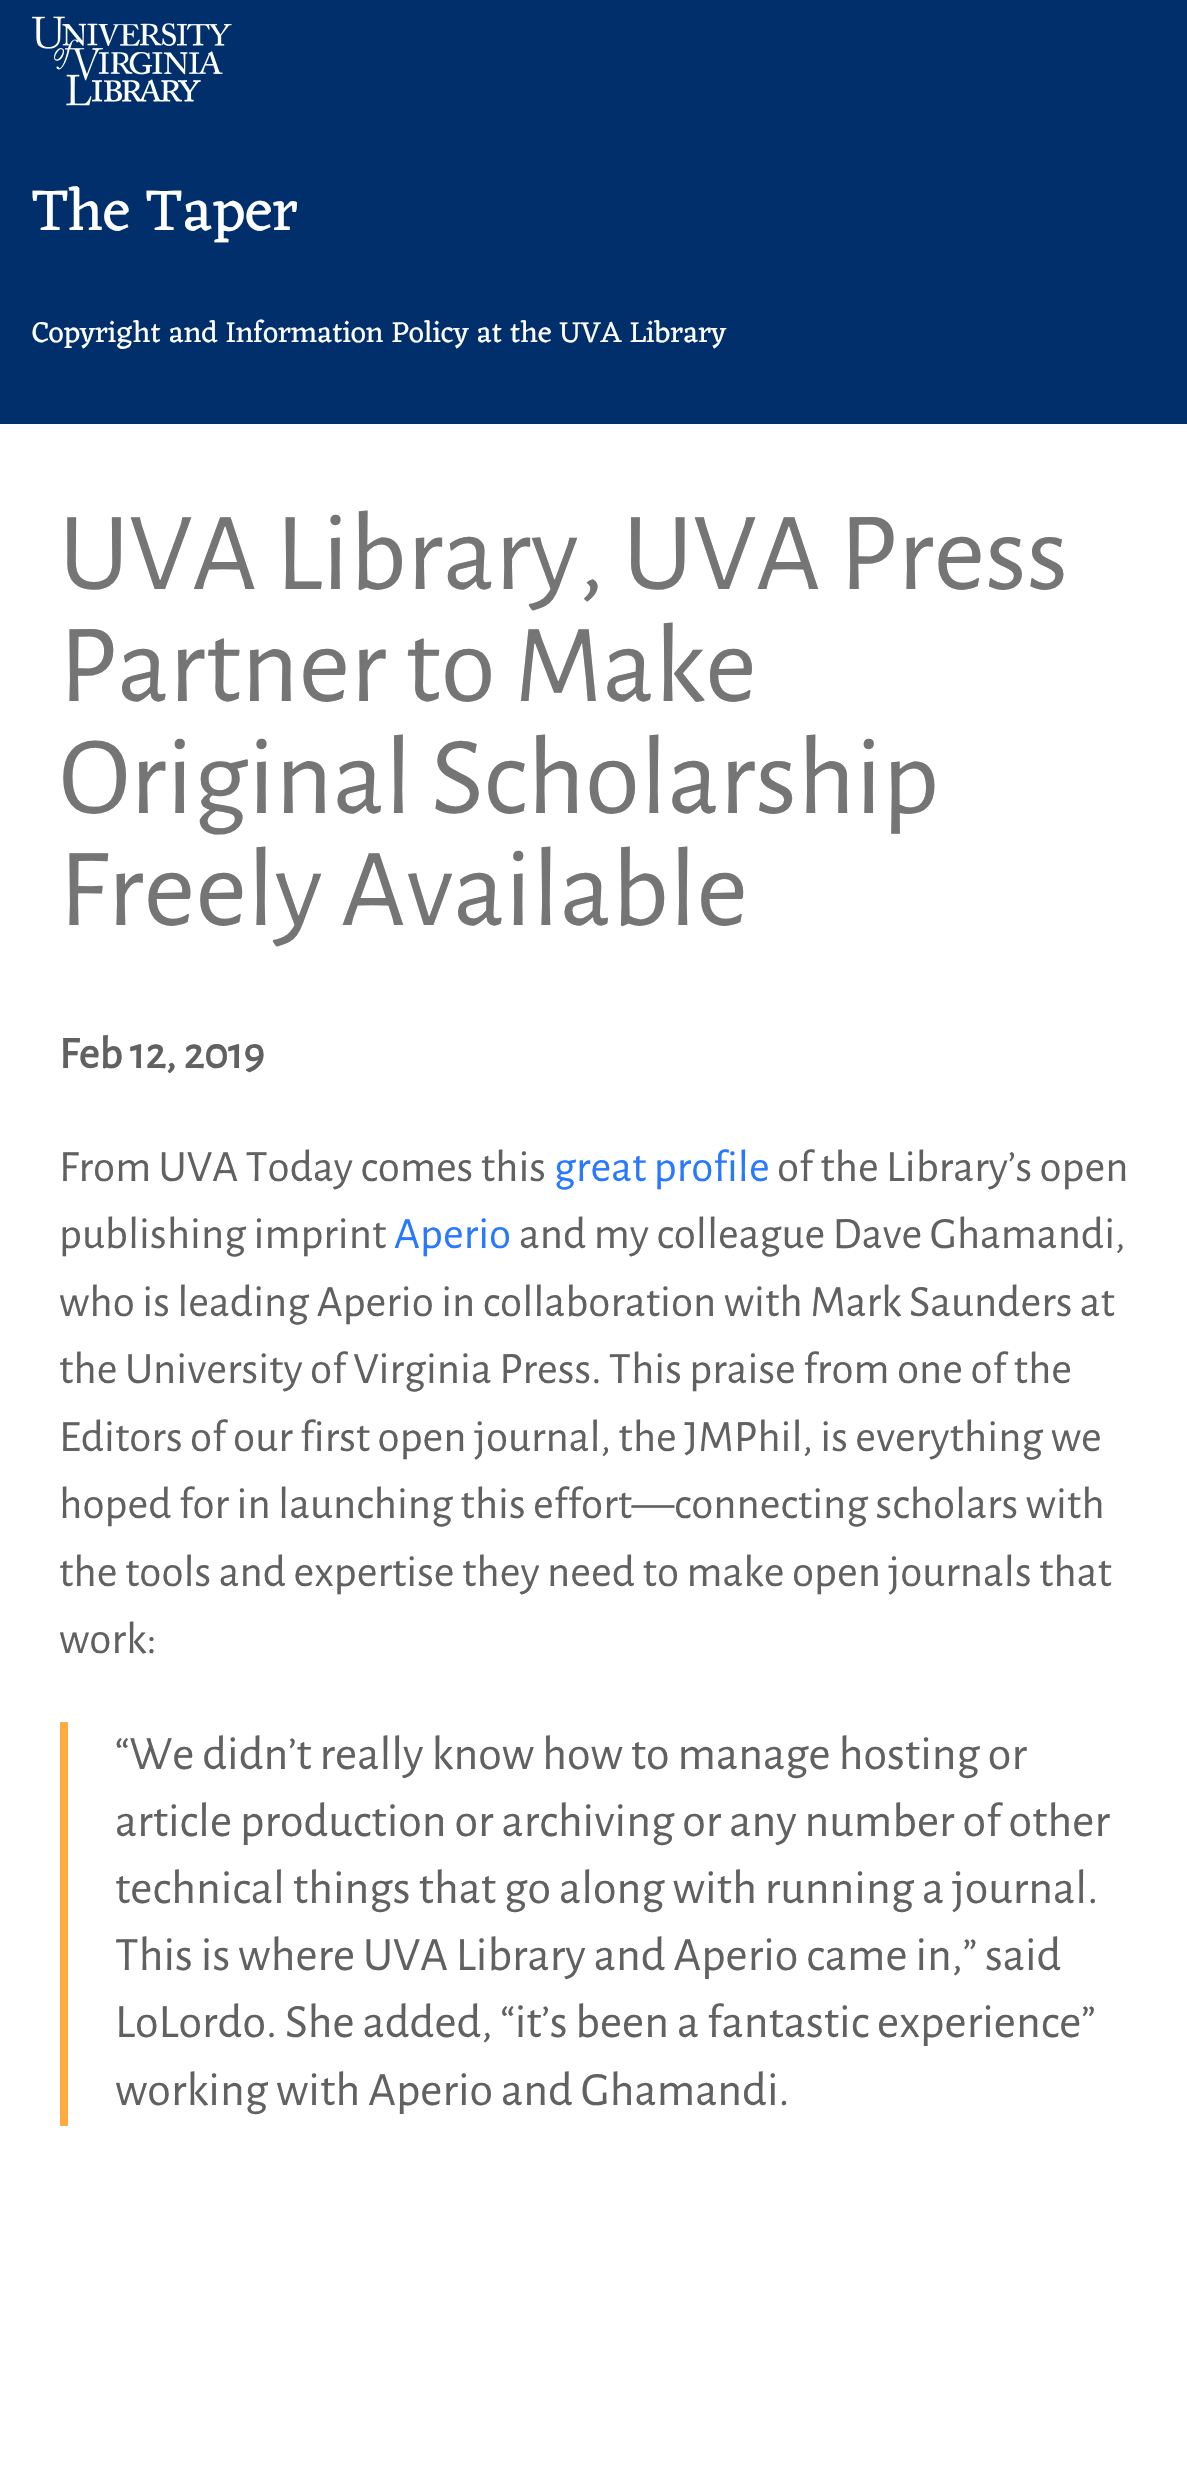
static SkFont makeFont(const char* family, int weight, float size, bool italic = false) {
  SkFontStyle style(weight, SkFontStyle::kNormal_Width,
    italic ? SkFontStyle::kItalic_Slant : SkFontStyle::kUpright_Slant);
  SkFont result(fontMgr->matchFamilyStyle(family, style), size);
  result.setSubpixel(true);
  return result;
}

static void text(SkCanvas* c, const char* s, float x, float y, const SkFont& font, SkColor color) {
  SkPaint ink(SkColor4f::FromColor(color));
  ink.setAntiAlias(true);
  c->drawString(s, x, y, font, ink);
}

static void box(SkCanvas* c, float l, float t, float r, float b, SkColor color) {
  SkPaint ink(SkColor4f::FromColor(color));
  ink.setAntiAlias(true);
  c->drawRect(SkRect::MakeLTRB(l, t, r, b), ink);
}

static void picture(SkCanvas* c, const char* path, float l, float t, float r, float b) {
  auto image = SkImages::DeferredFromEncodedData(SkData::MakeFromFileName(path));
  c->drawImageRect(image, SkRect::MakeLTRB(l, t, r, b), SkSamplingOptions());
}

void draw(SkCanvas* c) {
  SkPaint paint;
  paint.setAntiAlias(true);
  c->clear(0xffffffff);
  box(c, 0, 0, 1187, 424, 0xff002f6c);
  picture(c, "img_01.png", 32, 16, 232, 106);
  SkFont face1 = makeFont("Eczar", 400, 60);
  text(c, "The Taper", 32, 230, face1, 0xffffffff);
  SkFont face2 = makeFont("Eczar", 400, 30);
  text(c, "Copyright and Information Policy at the UVA Library", 32, 342, face2, 0xffffffff);
  SkFont face3 = makeFont("Alegreya Sans", 400, 112);
  text(c, "UVA Library, UVA Press", 59, 589, face3, 0xff757575);
  text(c, "Partner to Make", 59, 701, face3, 0xff757575);
  text(c, "Original Scholarship", 59, 813, face3, 0xff757575);
  text(c, "Freely Available", 59, 925, face3, 0xff757575);
  SkFont face4 = makeFont("Alegreya Sans", 700, 45);
  text(c, "Feb 12, 2019", 59, 1068, face4, 0xff616161);
  SkFont face5 = makeFont("Alegreya Sans", 400, 45);
  text(c, "From UVA Today comes this", 59, 1181, face5, 0xff616161);
  text(c, "great profile", 554, 1181, face5, 0xff2979ff);
  text(c, "of the Library’s open", 777, 1181, face5, 0xff616161);
  text(c, "publishing imprint", 59, 1248, face5, 0xff616161);
  text(c, "Aperio", 394, 1248, face5, 0xff2979ff);
  text(c, "and my colleague Dave Ghamandi,", 519, 1248, face5, 0xff616161);
  text(c, "who is leading Aperio in collaboration with Mark Saunders at", 59, 1316, face5, 0xff616161);
  text(c, "the University of Virginia Press. This praise from one of the", 59, 1383, face5, 0xff616161);
  text(c, "Editors of our first open journal, the JMPhil, is everything we", 59, 1451, face5, 0xff616161);
  text(c, "hoped for in launching this effort—connecting scholars with", 59, 1518, face5, 0xff616161);
  text(c, "the tools and expertise they need to make open journals that", 59, 1586, face5, 0xff616161);
  text(c, "work:", 59, 1653, face5, 0xff616161);
  box(c, 60, 1722, 68, 2126, 0xffffab40);
  SkFont face6 = makeFont("Alegreya Sans", 400, 48);
  text(c, "“We didn’t really know how to manage hosting or", 115, 1769, face6, 0xff616161);
  text(c, "article production or archiving or any number of other", 115, 1836, face6, 0xff616161);
  text(c, "technical things that go along with running a journal.", 115, 1903, face6, 0xff616161);
  text(c, "This is where UVA Library and Aperio came in,” said", 115, 1970, face6, 0xff616161);
  text(c, "LoLordo. She added, “it’s been a fantastic experience”", 115, 2037, face6, 0xff616161);
  text(c, "working with Aperio and Ghamandi.", 115, 2105, face6, 0xff616161);
}
